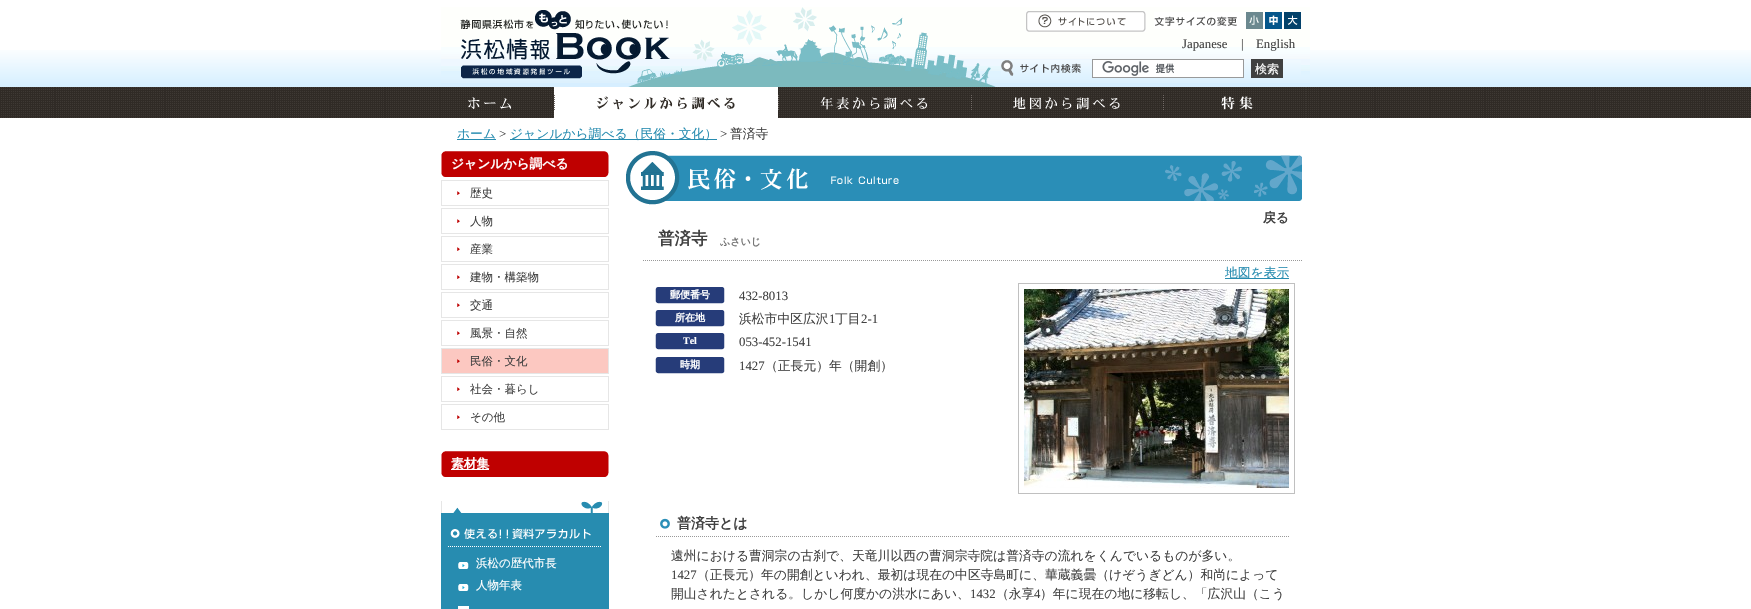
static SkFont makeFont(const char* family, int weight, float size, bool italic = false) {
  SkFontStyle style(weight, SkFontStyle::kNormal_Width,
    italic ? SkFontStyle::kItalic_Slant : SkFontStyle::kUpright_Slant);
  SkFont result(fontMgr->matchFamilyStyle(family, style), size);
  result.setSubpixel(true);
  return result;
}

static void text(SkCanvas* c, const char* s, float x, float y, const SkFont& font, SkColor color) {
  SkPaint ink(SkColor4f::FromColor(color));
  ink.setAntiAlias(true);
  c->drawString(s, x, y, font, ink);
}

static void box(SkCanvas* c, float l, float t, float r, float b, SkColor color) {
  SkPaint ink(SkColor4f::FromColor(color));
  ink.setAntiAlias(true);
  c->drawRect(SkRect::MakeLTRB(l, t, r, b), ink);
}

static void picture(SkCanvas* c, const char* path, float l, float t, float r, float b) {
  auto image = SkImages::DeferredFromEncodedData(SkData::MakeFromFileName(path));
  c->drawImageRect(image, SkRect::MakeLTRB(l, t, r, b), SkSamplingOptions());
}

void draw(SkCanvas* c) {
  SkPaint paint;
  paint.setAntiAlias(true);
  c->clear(0xffffffff);
  picture(c, "img_01.png", 0, 50, 1751, 118);
  picture(c, "img_02.png", 441, 7, 1310, 87);
  picture(c, "img_03.png", 1026, 11, 1146, 32);
  picture(c, "img_04.png", 1154, 12, 1301, 29);
  SkFont face1 = makeFont("Liberation Serif", 400, 12.8f);
  text(c, "Japanese", 1182, 48, face1, 0xff414141);
  text(c, "|", 1241, 48, face1, 0xff414141);
  text(c, "English", 1256, 48, face1, 0xff414141);
  picture(c, "img_05.png", 1001, 60, 1301, 76);
  box(c, 1093, 60, 1243, 77, 0xffffffff);
  picture(c, "img_06.png", 1102, 61, 1175, 76);
  paint.setStyle(SkPaint::kStroke_Style);
  paint.setStrokeWidth(1);
  paint.setColor(0xff999999);
  c->drawRect(SkRect::MakeLTRB(1092.5f, 59.5f, 1243.5f, 77.5f), paint);
  box(c, 1251, 59, 1283, 78, 0xff404040);
  SkFont face2 = makeFont("WenQuanYi Zen Hei", 500, 12);
  text(c, "検索", 1255, 73, face2, 0xffffffff);
  picture(c, "img_07.png", 468, 87, 550, 118);
  picture(c, "img_08.png", 554, 87, 778, 118);
  picture(c, "img_09.png", 778, 87, 971, 118);
  picture(c, "img_10.png", 971, 87, 1163, 118);
  picture(c, "img_11.png", 1163, 87, 1306, 118);
  box(c, 457, 139, 496, 140, 0xff278cb0);
  SkFont face3 = makeFont("WenQuanYi Zen Hei", 500, 12.8f);
  text(c, "ホーム", 457, 138, face3, 0xff278cb0);
  text(c, ">", 499, 138, face1, 0xff414141);
  box(c, 510, 139, 717, 140, 0xff278cb0);
  text(c, "ジャンルから調べる（民俗・文化）", 510, 138, face3, 0xff278cb0);
  text(c, ">", 720, 138, face1, 0xff414141);
  text(c, "普済寺", 730, 138, face3, 0xff414141);
  picture(c, "img_12.png", 441, 151, 609, 177);
  SkFont face4 = makeFont("WenQuanYi Zen Hei", 700, 12.8f);
  text(c, "ジャンルから調べる", 451, 168, face4, 0xffffffff);
  picture(c, "img_13.png", 441, 180, 609, 206);
  SkFont face5 = makeFont("WenQuanYi Zen Hei", 500, 11.5f);
  text(c, "歴史", 470, 197, face5, 0xff414141);
  picture(c, "img_13.png", 441, 208, 609, 234);
  text(c, "人物", 470, 225, face5, 0xff414141);
  picture(c, "img_13.png", 441, 236, 609, 262);
  text(c, "産業", 470, 253, face5, 0xff414141);
  picture(c, "img_13.png", 441, 264, 609, 290);
  text(c, "建物・構築物", 470, 281, face5, 0xff414141);
  picture(c, "img_13.png", 441, 292, 609, 318);
  text(c, "交通", 470, 309, face5, 0xff414141);
  picture(c, "img_13.png", 441, 320, 609, 346);
  text(c, "風景・自然", 470, 337, face5, 0xff414141);
  picture(c, "img_14.png", 441, 348, 609, 374);
  text(c, "民俗・文化", 470, 365, face5, 0xff414141);
  picture(c, "img_13.png", 441, 376, 609, 402);
  text(c, "社会・暮らし", 470, 393, face5, 0xff414141);
  picture(c, "img_13.png", 441, 404, 609, 430);
  text(c, "その他", 470, 421, face5, 0xff414141);
  picture(c, "img_12.png", 441, 451, 609, 477);
  box(c, 451, 469, 489, 470, 0xffffffff);
  text(c, "素材集", 451, 468, face4, 0xffffffff);
  picture(c, "img_15.png", 441, 501, 609, 547);
  box(c, 441, 547, 609, 609, 0xff278cb0);
  picture(c, "img_16.png", 458, 562, 469, 569);
  text(c, "浜松の歴代市長", 476, 567, face5, 0xffffffff);
  picture(c, "img_16.png", 458, 584, 469, 591);
  text(c, "人物年表", 476, 589, face5, 0xffffffff);
  box(c, 458, 606, 469, 609, 0xffffffff);
  picture(c, "img_17.png", 626, 151, 1302, 205);
  text(c, "戻る", 1263, 222, face4, 0xff414141);
  picture(c, "img_18.png", 643, 260, 1302, 261);
  SkFont face6 = makeFont("WenQuanYi Zen Hei", 700, 16.5f);
  text(c, "普済寺", 658, 244, face6, 0xff414141);
  SkFont face7 = makeFont("WenQuanYi Zen Hei", 700, 10);
  text(c, "ふさいじ", 720, 245, face7, 0xff737373);
  box(c, 1225, 278, 1289, 279, 0xff278cb0);
  text(c, "地図を表示", 1225, 277, face3, 0xff278cb0);
  picture(c, "img_19.png", 655, 287, 725, 304);
  text(c, "郵便番号", 670, 298, face7, 0xffffffff);
  text(c, "432-8013", 739, 300, face1, 0xff414141);
  picture(c, "img_19.png", 655, 310, 725, 327);
  text(c, "所在地", 675, 321, face7, 0xffffffff);
  text(c, "浜松市中区広沢", 739, 323, face3, 0xff414141);
  text(c, "1", 829, 323, face1, 0xff414141);
  text(c, "丁目", 835, 323, face3, 0xff414141);
  text(c, "2-1", 861, 323, face1, 0xff414141);
  picture(c, "img_19.png", 655, 333, 725, 350);
  SkFont face8 = makeFont("Liberation Serif", 700, 10);
  text(c, "Tel", 683, 344, face8, 0xffffffff);
  text(c, "053-452-1541", 739, 346, face1, 0xff414141);
  picture(c, "img_19.png", 655, 357, 725, 374);
  text(c, "時期", 680, 368, face7, 0xffffffff);
  text(c, "1427", 739, 370, face1, 0xff414141);
  text(c, "（正長元）年（開創）", 765, 370, face3, 0xff414141);
  paint.setColor(0xffc0c0c0);
  c->drawRect(SkRect::MakeLTRB(1018.5f, 283.5f, 1294.5f, 493.5f), paint);
  picture(c, "img_20.png", 1024, 289, 1289, 488);
  picture(c, "img_21.png", 656, 518, 1289, 537);
  SkFont face9 = makeFont("WenQuanYi Zen Hei", 700, 14);
  text(c, "普済寺とは", 677, 528, face9, 0xff414141);
  text(c, "遠州における曹洞宗の古刹で、天竜川以西の曹洞宗寺院は普済寺の流れをくんでいるものが多い。", 671, 560, face3, 0xff414141);
  text(c, "1427", 671, 579, face1, 0xff414141);
  text(c, "（正長元）年の開創といわれ、最初は現在の中区寺島町に、華蔵義曇（けぞうぎどん）和尚によって", 697, 579, face3, 0xff414141);
  text(c, "開山されたとされる。しかし何度かの洪水にあい、", 671, 598, face3, 0xff414141);
  text(c, "1432", 970, 598, face1, 0xff414141);
  text(c, "（永享", 996, 598, face3, 0xff414141);
  text(c, "4", 1034, 598, face1, 0xff414141);
  text(c, "）年に現在の地に移転し、「広沢山（こう", 1040, 598, face3, 0xff414141);
}
